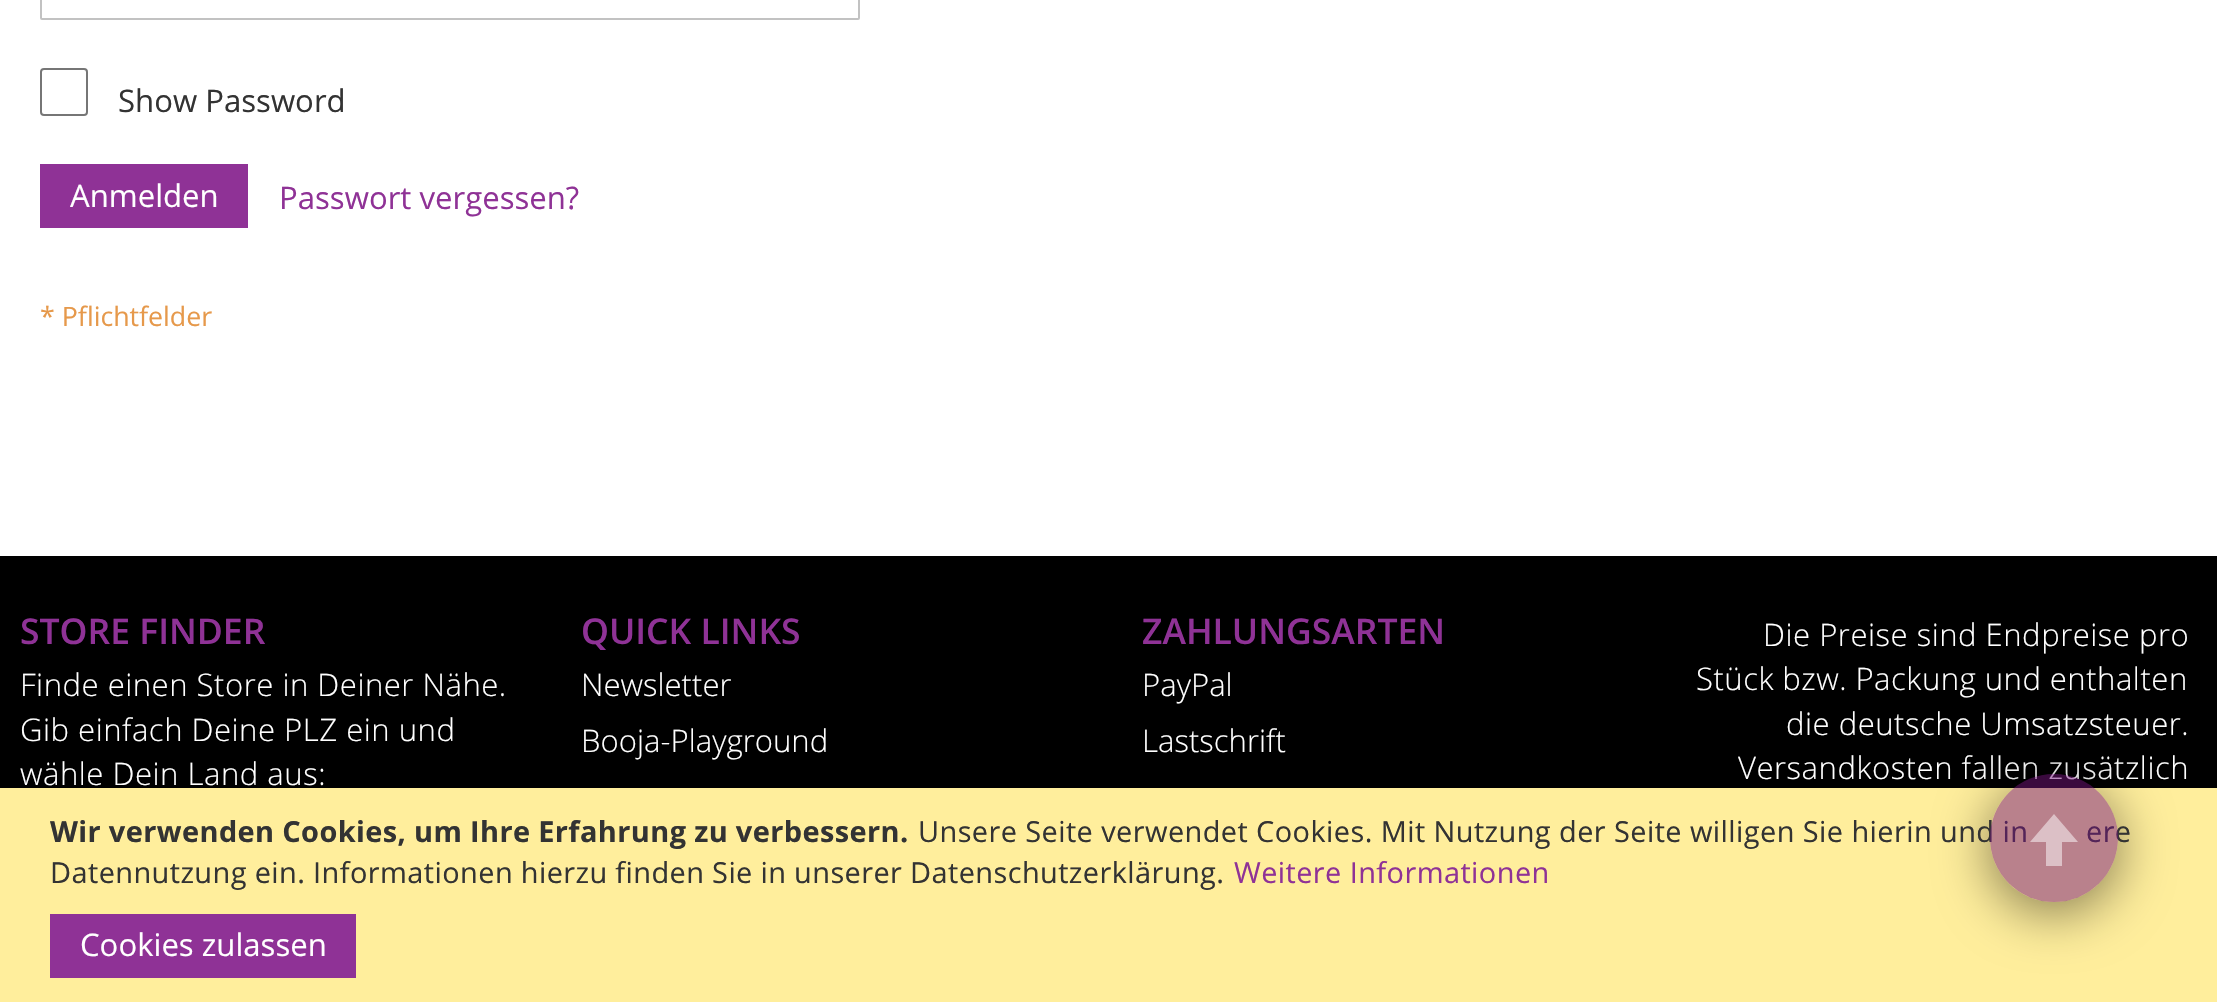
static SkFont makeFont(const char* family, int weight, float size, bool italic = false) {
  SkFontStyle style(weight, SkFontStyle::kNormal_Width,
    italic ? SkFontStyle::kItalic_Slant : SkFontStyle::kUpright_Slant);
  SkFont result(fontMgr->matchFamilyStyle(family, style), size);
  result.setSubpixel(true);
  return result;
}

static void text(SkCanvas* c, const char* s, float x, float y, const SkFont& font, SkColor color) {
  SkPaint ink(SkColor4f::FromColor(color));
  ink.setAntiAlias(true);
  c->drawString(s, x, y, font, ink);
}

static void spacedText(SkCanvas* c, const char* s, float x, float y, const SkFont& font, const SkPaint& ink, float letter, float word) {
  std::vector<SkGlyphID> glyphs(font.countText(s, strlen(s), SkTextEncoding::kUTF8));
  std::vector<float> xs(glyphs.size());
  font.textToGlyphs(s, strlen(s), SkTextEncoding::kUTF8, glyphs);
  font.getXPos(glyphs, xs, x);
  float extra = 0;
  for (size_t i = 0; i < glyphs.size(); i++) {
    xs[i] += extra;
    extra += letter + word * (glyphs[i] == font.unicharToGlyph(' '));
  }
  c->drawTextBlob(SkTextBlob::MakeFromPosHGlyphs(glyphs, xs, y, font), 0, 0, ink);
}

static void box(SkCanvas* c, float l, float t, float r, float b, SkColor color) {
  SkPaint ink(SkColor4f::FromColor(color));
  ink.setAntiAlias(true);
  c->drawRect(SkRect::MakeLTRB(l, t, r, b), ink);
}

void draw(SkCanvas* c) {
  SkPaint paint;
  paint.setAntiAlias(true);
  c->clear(0xffffffff);
  paint.setStyle(SkPaint::kStroke_Style);
  paint.setStrokeWidth(2);
  paint.setColor(0xffc2c2c2);
  c->drawRoundRect(SkRect::MakeLTRB(41, -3, 859, 19), 1, 1, paint);
  paint.setColor(0xff767676);
  c->drawRoundRect(SkRect::MakeLTRB(41, 69, 87, 115), 3, 3, paint);
  SkFont face1 = makeFont("Open Sans", 400, 31.1f);
  text(c, "Show Password", 118, 112, face1, 0xff333333);
  box(c, 40, 164, 248, 228, 0xff8f3296);
  text(c, "Anmelden", 70, 207, face1, 0xffffffff);
  text(c, "Passwort vergessen?", 279, 209, face1, 0xff8f3296);
  SkFont face2 = makeFont("Open Sans", 400, 26.75f);
  text(c, "* Pflichtfelder", 40, 326, face2, 0xffe6994b);
  box(c, 0, 556, 2217, 788, 0xff000000);
  SkFont face3 = makeFont("Open Sans", 600, 35.5f);
  text(c, "STORE FINDER", 20, 644, face3, 0xff8f3296);
  SkFont face4 = makeFont("Open Sans", 300, 31.1f);
  paint.setStyle(SkPaint::kFill_Style);
  paint.setColor(0xffffffff);
  spacedText(c, "Finde einen Store in Deiner Nähe.", 20, 696, face4, paint, 0.5f, 0);
  spacedText(c, "Gib einfach Deine PLZ ein und", 20, 741, face4, paint, 0.5f, 0);
  spacedText(c, "wähle Dein Land aus:", 20, 785, face4, paint, 0.5f, 0);
  text(c, "QUICK LINKS", 581, 644, face3, 0xff8f3296);
  text(c, "Newsletter", 581, 696, face4, 0xffffffff);
  text(c, "Booja-Playground", 581, 752, face4, 0xffffffff);
  text(c, "ZAHLUNGSARTEN", 1142, 644, face3, 0xff8f3296);
  text(c, "PayPal", 1142, 696, face4, 0xffffffff);
  text(c, "Lastschrift", 1142, 752, face4, 0xffffffff);
  spacedText(c, "Die Preise sind Endpreise pro", 1763, 646, face4, paint, 0.5f, 0);
  spacedText(c, "Stück bzw. Packung und enthalten", 1696, 690, face4, paint, 0.5f, -0.25f);
  spacedText(c, "die deutsche Umsatzsteuer.", 1786, 735, face4, paint, 0.5f, 0);
  spacedText(c, "Versandkosten fallen zusätzlich", 1738, 779, face4, paint, 0.5f, 0);
  box(c, 0, 788, 2217, 1002, 0xffffee9c);
  c->save();
  c->clipPath(SkPathBuilder(SkPathFillType::kEvenOdd).moveTo(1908, 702).lineTo(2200, 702).lineTo(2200, 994).lineTo(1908, 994).close().moveTo(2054, 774).cubicTo(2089.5f, 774, 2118, 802.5f, 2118, 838).cubicTo(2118, 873.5f, 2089.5f, 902, 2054, 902).cubicTo(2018.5f, 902, 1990, 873.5f, 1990, 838).cubicTo(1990, 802.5f, 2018.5f, 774, 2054, 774).close().detach(), true);
  paint.setColor(0x80000000);
  paint.setMaskFilter(SkMaskFilter::MakeBlur(kNormal_SkBlurStyle, 27));
  c->drawRoundRect(SkRect::MakeLTRB(1990, 784, 2118, 912), 64, 64, paint);
  paint.setMaskFilter(nullptr);
  c->restore();
  SkFont face5 = makeFont("Open Sans", 400, 28.9f);
  paint.setColor(0xff333333);
  spacedText(c, "Unsere Seite verwendet Cookies. Mit Nutzung der Seite willigen Sie hierin und in", 918, 842, face5, paint, 0.43f, 0);
  spacedText(c, "ere", 2086, 842, face5, paint, 0.43f, 0);
  paint.setColor(0x8074147b);
  c->drawCircle(2054, 838, 64, paint);
  paint.setColor(0x80ffffff);
  c->drawPath(SkPathBuilder().moveTo(2054, 814).lineTo(2030, 842).lineTo(2046, 842).lineTo(2046, 866).lineTo(2062, 866).lineTo(2062, 842).lineTo(2078, 842).close().detach(), paint);
  SkFont face6 = makeFont("Open Sans", 700, 28.9f);
  paint.setColor(0xff333333);
  spacedText(c, "Wir verwenden Cookies, um Ihre Erfahrung zu verbessern.", 50, 842, face6, paint, 0.43f, -0.25f);
  spacedText(c, "Datennutzung ein. Informationen hierzu finden Sie in unserer Datenschutzerklärung.", 50, 883, face5, paint, 0.43f, -0.25f);
  paint.setColor(0xff8f3296);
  spacedText(c, "Weitere Informationen", 1234, 883, face5, paint, 0.43f, 0);
  box(c, 50, 914, 356, 978, 0xff8f3296);
  text(c, "Cookies zulassen", 80, 956, face1, 0xffffffff);
}
